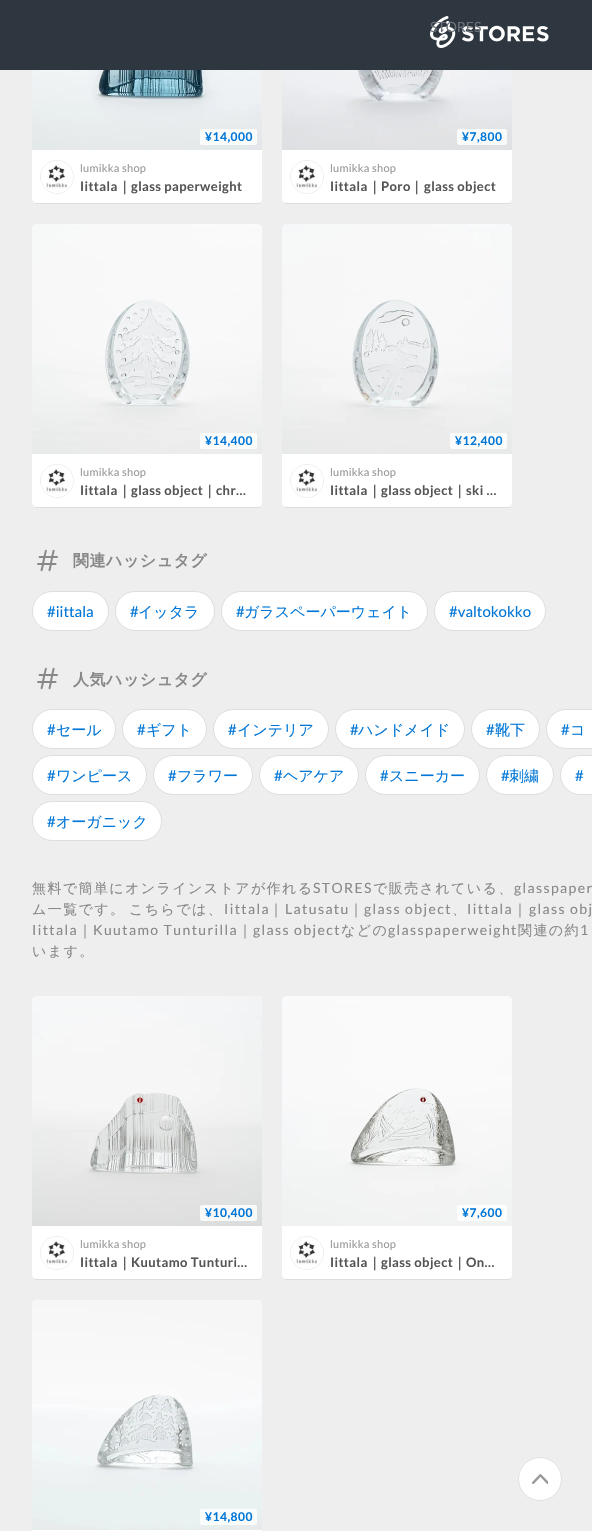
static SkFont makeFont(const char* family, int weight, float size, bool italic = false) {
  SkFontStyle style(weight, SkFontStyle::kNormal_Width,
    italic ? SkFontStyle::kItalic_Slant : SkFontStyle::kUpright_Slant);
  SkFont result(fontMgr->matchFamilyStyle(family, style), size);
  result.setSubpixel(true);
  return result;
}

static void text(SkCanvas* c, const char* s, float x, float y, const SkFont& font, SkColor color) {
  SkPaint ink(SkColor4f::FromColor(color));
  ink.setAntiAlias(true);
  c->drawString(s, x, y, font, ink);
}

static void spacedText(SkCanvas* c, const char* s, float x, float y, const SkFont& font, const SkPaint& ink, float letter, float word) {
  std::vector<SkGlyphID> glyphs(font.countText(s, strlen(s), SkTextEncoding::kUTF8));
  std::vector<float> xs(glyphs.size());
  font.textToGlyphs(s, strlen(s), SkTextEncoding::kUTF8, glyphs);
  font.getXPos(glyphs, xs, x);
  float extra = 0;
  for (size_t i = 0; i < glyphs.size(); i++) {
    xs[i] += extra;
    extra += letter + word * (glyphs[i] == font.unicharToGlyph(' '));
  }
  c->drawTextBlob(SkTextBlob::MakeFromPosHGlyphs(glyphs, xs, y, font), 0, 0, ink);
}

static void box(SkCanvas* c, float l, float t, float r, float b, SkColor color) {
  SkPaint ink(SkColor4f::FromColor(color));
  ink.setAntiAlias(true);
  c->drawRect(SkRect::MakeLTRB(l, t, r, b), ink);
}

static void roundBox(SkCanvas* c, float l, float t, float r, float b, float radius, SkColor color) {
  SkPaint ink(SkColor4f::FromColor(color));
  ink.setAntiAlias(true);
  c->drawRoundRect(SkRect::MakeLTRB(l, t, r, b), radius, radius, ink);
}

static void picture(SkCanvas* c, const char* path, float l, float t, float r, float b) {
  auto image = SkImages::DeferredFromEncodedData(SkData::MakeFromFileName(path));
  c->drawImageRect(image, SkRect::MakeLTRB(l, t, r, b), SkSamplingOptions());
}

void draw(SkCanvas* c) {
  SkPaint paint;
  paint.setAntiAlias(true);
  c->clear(0xffeeeeee);
  paint.setColor(0xffffffff);
  c->drawPath(SkPathBuilder().moveTo(37, -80).lineTo(257, -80).cubicTo(260, -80, 262, -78, 262, -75).lineTo(262, 199).cubicTo(262, 201, 260, 203, 257, 203).lineTo(37, 203).cubicTo(34, 203, 32, 201, 32, 199).lineTo(32, -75).cubicTo(32, -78, 34, -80, 37, -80).close().detach(), paint);
  c->drawPath(SkPathBuilder().moveTo(287, -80).lineTo(507, -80).cubicTo(510, -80, 512, -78, 512, -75).lineTo(512, 199).cubicTo(512, 201, 510, 203, 507, 203).lineTo(287, 203).cubicTo(284, 203, 282, 201, 282, 199).lineTo(282, -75).cubicTo(282, -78, 284, -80, 287, -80).close().detach(), paint);
  box(c, 0, 0, 592, 70, 0xff2e3740);
  picture(c, "img_01.png", 430, 16, 549, 48);
  SkFont face1 = makeFont("Lato", 400, 14);
  text(c, "STORES", 430, 32, face1, 0xff6c7279);
  box(c, 35, 203, 260, 204, 0xffdddddd);
  picture(c, "img_02.png", 32, 70, 262, 150);
  roundBox(c, 200, 129, 257, 145, 2, 0xccffffff);
  SkFont face2 = makeFont("Lato", 700, 12);
  paint.setColor(0xff0076d7);
  spacedText(c, "¥14,000", 205, 141, face2, paint, 0.5f, 0);
  paint.setStyle(SkPaint::kStroke_Style);
  paint.setStrokeWidth(1);
  paint.setColor(0xffeeeeee);
  c->drawCircle(57, 177, 16.5f, paint);
  picture(c, "img_03.png", 41, 161, 73, 193);
  SkFont face3 = makeFont("Lato", 400, 11);
  paint.setStyle(SkPaint::kFill_Style);
  paint.setColor(0xff999999);
  spacedText(c, "lumikka shop", 80, 172, face3, paint, 0.25f, 0);
  SkFont face4 = makeFont("Lato", 700, 13);
  paint.setColor(0xff555555);
  spacedText(c, "Iittala", 80, 191, face4, paint, 0.4f, 0);
  SkFont face5 = makeFont("WenQuanYi Zen Hei", 700, 13);
  spacedText(c, "｜", 118, 191, face5, paint, 0.4f, 0);
  spacedText(c, "glass paperweight", 131, 191, face4, paint, 0.4f, 0);
  box(c, 285, 203, 510, 204, 0xffdddddd);
  picture(c, "img_04.png", 282, 70, 512, 150);
  roundBox(c, 457, 129, 507, 145, 2, 0xccffffff);
  paint.setColor(0xff0076d7);
  spacedText(c, "¥7,800", 462, 141, face2, paint, 0.5f, 0);
  paint.setStyle(SkPaint::kStroke_Style);
  paint.setColor(0xffeeeeee);
  c->drawCircle(307, 177, 16.5f, paint);
  picture(c, "img_03.png", 291, 161, 323, 193);
  paint.setStyle(SkPaint::kFill_Style);
  paint.setColor(0xff999999);
  spacedText(c, "lumikka shop", 330, 172, face3, paint, 0.25f, 0);
  paint.setColor(0xff555555);
  spacedText(c, "Iittala", 330, 191, face4, paint, 0.4f, 0);
  spacedText(c, "｜", 368, 191, face5, paint, 0.4f, 0);
  spacedText(c, "Poro", 381, 191, face4, paint, 0.4f, 0);
  spacedText(c, "｜", 410, 191, face5, paint, 0.4f, 0);
  spacedText(c, "glass object", 424, 191, face4, paint, 0.4f, 0);
  paint.setColor(0xffffffff);
  c->drawPath(SkPathBuilder().moveTo(37, 224).lineTo(257, 224).cubicTo(260, 224, 262, 226, 262, 229).lineTo(262, 503).cubicTo(262, 505, 260, 507, 257, 507).lineTo(37, 507).cubicTo(34, 507, 32, 505, 32, 503).lineTo(32, 229).cubicTo(32, 226, 34, 224, 37, 224).close().detach(), paint);
  box(c, 35, 507, 260, 508, 0xffdddddd);
  picture(c, "img_05.png", 32, 224, 262, 454);
  roundBox(c, 200, 433, 257, 449, 2, 0xccffffff);
  paint.setColor(0xff0076d7);
  spacedText(c, "¥14,400", 205, 445, face2, paint, 0.5f, 0);
  paint.setStyle(SkPaint::kStroke_Style);
  paint.setColor(0xffeeeeee);
  c->drawCircle(57, 481, 16.5f, paint);
  picture(c, "img_03.png", 41, 465, 73, 497);
  paint.setStyle(SkPaint::kFill_Style);
  paint.setColor(0xff999999);
  spacedText(c, "lumikka shop", 80, 476, face3, paint, 0.25f, 0);
  paint.setColor(0xff555555);
  spacedText(c, "Iittala", 80, 495, face4, paint, 0.4f, 0);
  spacedText(c, "｜", 118, 495, face5, paint, 0.4f, 0);
  spacedText(c, "glass object", 131, 495, face4, paint, 0.4f, 0);
  spacedText(c, "｜", 203, 495, face5, paint, 0.4f, 0);
  spacedText(c, "chr…", 216, 495, face4, paint, 0.4f, 0);
  paint.setColor(0xffffffff);
  c->drawPath(SkPathBuilder().moveTo(287, 224).lineTo(507, 224).cubicTo(510, 224, 512, 226, 512, 229).lineTo(512, 503).cubicTo(512, 505, 510, 507, 507, 507).lineTo(287, 507).cubicTo(284, 507, 282, 505, 282, 503).lineTo(282, 229).cubicTo(282, 226, 284, 224, 287, 224).close().detach(), paint);
  box(c, 285, 507, 510, 508, 0xffdddddd);
  picture(c, "img_06.png", 282, 224, 512, 454);
  roundBox(c, 450, 433, 507, 449, 2, 0xccffffff);
  paint.setColor(0xff0076d7);
  spacedText(c, "¥12,400", 455, 445, face2, paint, 0.5f, 0);
  paint.setStyle(SkPaint::kStroke_Style);
  paint.setColor(0xffeeeeee);
  c->drawCircle(307, 481, 16.5f, paint);
  picture(c, "img_03.png", 291, 465, 323, 497);
  paint.setStyle(SkPaint::kFill_Style);
  paint.setColor(0xff999999);
  spacedText(c, "lumikka shop", 330, 476, face3, paint, 0.25f, 0);
  paint.setColor(0xff555555);
  spacedText(c, "Iittala", 330, 495, face4, paint, 0.4f, 0);
  spacedText(c, "｜", 368, 495, face5, paint, 0.4f, 0);
  spacedText(c, "glass object", 381, 495, face4, paint, 0.4f, 0);
  spacedText(c, "｜", 453, 495, face5, paint, 0.4f, 0);
  spacedText(c, "ski …", 466, 495, face4, paint, 0.4f, 0);
  picture(c, "img_07.png", 37, 549, 58, 572);
  SkFont face6 = makeFont("WenQuanYi Zen Hei", 700, 16);
  paint.setColor(0xff888888);
  spacedText(c, "関連ハッシュタグ", 73, 566, face6, paint, 0.5f, 0);
  paint.setColor(0xffffffff);
  c->drawRoundRect(SkRect::MakeLTRB(32.5f, 591.5f, 108.5f, 630.5f), 19.5f, 19.5f, paint);
  paint.setStyle(SkPaint::kStroke_Style);
  paint.setColor(0xffdedede);
  c->drawRoundRect(SkRect::MakeLTRB(32.5f, 591.5f, 108.5f, 630.5f), 19.5f, 19.5f, paint);
  SkFont face7 = makeFont("Lato", 400, 15);
  text(c, "#iittala", 47, 617, face7, 0xff0076d7);
  paint.setStyle(SkPaint::kFill_Style);
  paint.setColor(0xffffffff);
  c->drawRoundRect(SkRect::MakeLTRB(115.5f, 591.5f, 214.5f, 630.5f), 19.5f, 19.5f, paint);
  paint.setStyle(SkPaint::kStroke_Style);
  paint.setColor(0xffdedede);
  c->drawRoundRect(SkRect::MakeLTRB(115.5f, 591.5f, 214.5f, 630.5f), 19.5f, 19.5f, paint);
  text(c, "#", 130, 617, face7, 0xff0076d7);
  SkFont face8 = makeFont("WenQuanYi Zen Hei", 500, 15);
  text(c, "イッタラ", 138, 617, face8, 0xff0076d7);
  paint.setStyle(SkPaint::kFill_Style);
  paint.setColor(0xffffffff);
  c->drawRoundRect(SkRect::MakeLTRB(221.5f, 591.5f, 427.5f, 630.5f), 19.5f, 19.5f, paint);
  paint.setStyle(SkPaint::kStroke_Style);
  paint.setColor(0xffdedede);
  c->drawRoundRect(SkRect::MakeLTRB(221.5f, 591.5f, 427.5f, 630.5f), 19.5f, 19.5f, paint);
  text(c, "#", 236, 617, face7, 0xff0076d7);
  text(c, "ガラスペーパーウェイト", 244, 617, face8, 0xff0076d7);
  paint.setStyle(SkPaint::kFill_Style);
  paint.setColor(0xffffffff);
  c->drawRoundRect(SkRect::MakeLTRB(434.5f, 591.5f, 545.5f, 630.5f), 19.5f, 19.5f, paint);
  paint.setStyle(SkPaint::kStroke_Style);
  paint.setColor(0xffdedede);
  c->drawRoundRect(SkRect::MakeLTRB(434.5f, 591.5f, 545.5f, 630.5f), 19.5f, 19.5f, paint);
  text(c, "#valtokokko", 449, 617, face7, 0xff0076d7);
  picture(c, "img_07.png", 37, 667, 58, 690);
  paint.setStyle(SkPaint::kFill_Style);
  paint.setColor(0xff888888);
  spacedText(c, "人気ハッシュタグ", 73, 685, face6, paint, 0.5f, 0);
  paint.setColor(0xffffffff);
  c->drawRoundRect(SkRect::MakeLTRB(32.5f, 709.5f, 115.5f, 748.5f), 19.5f, 19.5f, paint);
  paint.setStyle(SkPaint::kStroke_Style);
  paint.setColor(0xffdedede);
  c->drawRoundRect(SkRect::MakeLTRB(32.5f, 709.5f, 115.5f, 748.5f), 19.5f, 19.5f, paint);
  text(c, "#", 47, 735, face7, 0xff0076d7);
  text(c, "セール", 56, 735, face8, 0xff0076d7);
  paint.setStyle(SkPaint::kFill_Style);
  paint.setColor(0xffffffff);
  c->drawRoundRect(SkRect::MakeLTRB(122.5f, 709.5f, 206.5f, 748.5f), 19.5f, 19.5f, paint);
  paint.setStyle(SkPaint::kStroke_Style);
  paint.setColor(0xffdedede);
  c->drawRoundRect(SkRect::MakeLTRB(122.5f, 709.5f, 206.5f, 748.5f), 19.5f, 19.5f, paint);
  text(c, "#", 137, 735, face7, 0xff0076d7);
  text(c, "ギフト", 146, 735, face8, 0xff0076d7);
  paint.setStyle(SkPaint::kFill_Style);
  paint.setColor(0xffffffff);
  c->drawRoundRect(SkRect::MakeLTRB(213.5f, 709.5f, 328.5f, 748.5f), 19.5f, 19.5f, paint);
  paint.setStyle(SkPaint::kStroke_Style);
  paint.setColor(0xffdedede);
  c->drawRoundRect(SkRect::MakeLTRB(213.5f, 709.5f, 328.5f, 748.5f), 19.5f, 19.5f, paint);
  text(c, "#", 228, 735, face7, 0xff0076d7);
  text(c, "インテリア", 237, 735, face8, 0xff0076d7);
  paint.setStyle(SkPaint::kFill_Style);
  paint.setColor(0xffffffff);
  c->drawRoundRect(SkRect::MakeLTRB(335.5f, 709.5f, 464.5f, 748.5f), 19.5f, 19.5f, paint);
  paint.setStyle(SkPaint::kStroke_Style);
  paint.setColor(0xffdedede);
  c->drawRoundRect(SkRect::MakeLTRB(335.5f, 709.5f, 464.5f, 748.5f), 19.5f, 19.5f, paint);
  text(c, "#", 350, 735, face7, 0xff0076d7);
  text(c, "ハンドメイド", 358, 735, face8, 0xff0076d7);
  paint.setStyle(SkPaint::kFill_Style);
  paint.setColor(0xffffffff);
  c->drawRoundRect(SkRect::MakeLTRB(471.5f, 709.5f, 539.5f, 748.5f), 19.5f, 19.5f, paint);
  paint.setStyle(SkPaint::kStroke_Style);
  paint.setColor(0xffdedede);
  c->drawRoundRect(SkRect::MakeLTRB(471.5f, 709.5f, 539.5f, 748.5f), 19.5f, 19.5f, paint);
  text(c, "#", 486, 735, face7, 0xff0076d7);
  text(c, "靴下", 495, 735, face8, 0xff0076d7);
  paint.setStyle(SkPaint::kFill_Style);
  paint.setColor(0xffffffff);
  c->drawRoundRect(SkRect::MakeLTRB(546.5f, 709.5f, 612.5f, 748.5f), 19.5f, 19.5f, paint);
  paint.setStyle(SkPaint::kStroke_Style);
  paint.setColor(0xffdedede);
  c->drawRoundRect(SkRect::MakeLTRB(546.5f, 709.5f, 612.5f, 748.5f), 19.5f, 19.5f, paint);
  text(c, "#", 561, 735, face7, 0xff0076d7);
  text(c, "コ", 570, 735, face8, 0xff0076d7);
  paint.setStyle(SkPaint::kFill_Style);
  paint.setColor(0xffffffff);
  c->drawRoundRect(SkRect::MakeLTRB(32.5f, 755.5f, 146.5f, 794.5f), 19.5f, 19.5f, paint);
  paint.setStyle(SkPaint::kStroke_Style);
  paint.setColor(0xffdedede);
  c->drawRoundRect(SkRect::MakeLTRB(32.5f, 755.5f, 146.5f, 794.5f), 19.5f, 19.5f, paint);
  text(c, "#", 47, 781, face7, 0xff0076d7);
  text(c, "ワンピース", 56, 781, face8, 0xff0076d7);
  paint.setStyle(SkPaint::kFill_Style);
  paint.setColor(0xffffffff);
  c->drawRoundRect(SkRect::MakeLTRB(153.5f, 755.5f, 252.5f, 794.5f), 19.5f, 19.5f, paint);
  paint.setStyle(SkPaint::kStroke_Style);
  paint.setColor(0xffdedede);
  c->drawRoundRect(SkRect::MakeLTRB(153.5f, 755.5f, 252.5f, 794.5f), 19.5f, 19.5f, paint);
  text(c, "#", 168, 781, face7, 0xff0076d7);
  text(c, "フラワー", 177, 781, face8, 0xff0076d7);
  paint.setStyle(SkPaint::kFill_Style);
  paint.setColor(0xffffffff);
  c->drawRoundRect(SkRect::MakeLTRB(259.5f, 755.5f, 358.5f, 794.5f), 19.5f, 19.5f, paint);
  paint.setStyle(SkPaint::kStroke_Style);
  paint.setColor(0xffdedede);
  c->drawRoundRect(SkRect::MakeLTRB(259.5f, 755.5f, 358.5f, 794.5f), 19.5f, 19.5f, paint);
  text(c, "#", 274, 781, face7, 0xff0076d7);
  text(c, "ヘアケア", 283, 781, face8, 0xff0076d7);
  paint.setStyle(SkPaint::kFill_Style);
  paint.setColor(0xffffffff);
  c->drawRoundRect(SkRect::MakeLTRB(365.5f, 755.5f, 479.5f, 794.5f), 19.5f, 19.5f, paint);
  paint.setStyle(SkPaint::kStroke_Style);
  paint.setColor(0xffdedede);
  c->drawRoundRect(SkRect::MakeLTRB(365.5f, 755.5f, 479.5f, 794.5f), 19.5f, 19.5f, paint);
  text(c, "#", 380, 781, face7, 0xff0076d7);
  text(c, "スニーカー", 389, 781, face8, 0xff0076d7);
  paint.setStyle(SkPaint::kFill_Style);
  paint.setColor(0xffffffff);
  c->drawRoundRect(SkRect::MakeLTRB(486.5f, 755.5f, 553.5f, 794.5f), 19.5f, 19.5f, paint);
  paint.setStyle(SkPaint::kStroke_Style);
  paint.setColor(0xffdedede);
  c->drawRoundRect(SkRect::MakeLTRB(486.5f, 755.5f, 553.5f, 794.5f), 19.5f, 19.5f, paint);
  text(c, "#", 501, 781, face7, 0xff0076d7);
  text(c, "刺繍", 509, 781, face8, 0xff0076d7);
  paint.setStyle(SkPaint::kFill_Style);
  paint.setColor(0xffffffff);
  c->drawRoundRect(SkRect::MakeLTRB(560.5f, 755.5f, 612.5f, 794.5f), 19.5f, 19.5f, paint);
  paint.setStyle(SkPaint::kStroke_Style);
  paint.setColor(0xffdedede);
  c->drawRoundRect(SkRect::MakeLTRB(560.5f, 755.5f, 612.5f, 794.5f), 19.5f, 19.5f, paint);
  text(c, "#", 575, 781, face7, 0xff0076d7);
  paint.setStyle(SkPaint::kFill_Style);
  paint.setColor(0xffffffff);
  c->drawRoundRect(SkRect::MakeLTRB(32.5f, 801.5f, 161.5f, 840.5f), 19.5f, 19.5f, paint);
  paint.setStyle(SkPaint::kStroke_Style);
  paint.setColor(0xffdedede);
  c->drawRoundRect(SkRect::MakeLTRB(32.5f, 801.5f, 161.5f, 840.5f), 19.5f, 19.5f, paint);
  text(c, "#", 47, 827, face7, 0xff0076d7);
  text(c, "オーガニック", 56, 827, face8, 0xff0076d7);
  SkFont face9 = makeFont("WenQuanYi Zen Hei", 500, 14);
  paint.setStyle(SkPaint::kFill_Style);
  paint.setColor(0xff888888);
  spacedText(c, "無料で簡単にオンラインストアが作れる", 32, 893, face9, paint, 1.4f, 0);
  spacedText(c, "STORES", 313, 893, face1, paint, 1.4f, 0);
  spacedText(c, "で販売されている、", 373, 893, face9, paint, 1.4f, 0);
  spacedText(c, "glasspaper", 514, 893, face1, paint, 1.4f, 0);
  spacedText(c, "ム一覧です。", 32, 914, face9, paint, 1.4f, 0);
  spacedText(c, "こちらでは、", 129, 914, face9, paint, 1.4f, 0);
  spacedText(c, "Iittala", 224, 914, face1, paint, 1.4f, 0);
  spacedText(c, "｜", 269, 914, face9, paint, 1.4f, 0);
  spacedText(c, "Latusatu", 285, 914, face1, paint, 1.4f, 0);
  spacedText(c, "｜", 349, 914, face9, paint, 1.4f, 0);
  spacedText(c, "glass object", 364, 914, face1, paint, 1.4f, 0);
  spacedText(c, "、", 452, 914, face9, paint, 1.4f, 0);
  spacedText(c, "Iittala", 467, 914, face1, paint, 1.4f, 0);
  spacedText(c, "｜", 513, 914, face9, paint, 1.4f, 0);
  spacedText(c, "glass obj", 529, 914, face1, paint, 1.4f, 0);
  spacedText(c, "Iittala", 32, 935, face1, paint, 1.4f, 0);
  spacedText(c, "｜", 78, 935, face9, paint, 1.4f, 0);
  spacedText(c, "Kuutamo Tunturilla", 93, 935, face1, paint, 1.4f, 0);
  spacedText(c, "｜", 238, 935, face9, paint, 1.4f, 0);
  spacedText(c, "glass object", 253, 935, face1, paint, 1.4f, 0);
  spacedText(c, "などの", 341, 935, face9, paint, 1.4f, 0);
  spacedText(c, "glasspaperweight", 388, 935, face1, paint, 1.4f, 0);
  spacedText(c, "関連の約", 518, 935, face9, paint, 1.4f, 0);
  spacedText(c, "1", 580, 935, face1, paint, 1.4f, 0);
  spacedText(c, "います。", 32, 956, face9, paint, 1.4f, 0);
  paint.setColor(0xffffffff);
  c->drawPath(SkPathBuilder().moveTo(37, 996).lineTo(257, 996).cubicTo(260, 996, 262, 998, 262, 1001).lineTo(262, 1275).cubicTo(262, 1277, 260, 1279, 257, 1279).lineTo(37, 1279).cubicTo(34, 1279, 32, 1277, 32, 1275).lineTo(32, 1001).cubicTo(32, 998, 34, 996, 37, 996).close().detach(), paint);
  box(c, 35, 1279, 260, 1280, 0xffdddddd);
  picture(c, "img_08.png", 32, 996, 262, 1226);
  roundBox(c, 200, 1205, 257, 1221, 2, 0xccffffff);
  paint.setColor(0xff0076d7);
  spacedText(c, "¥10,400", 205, 1217, face2, paint, 0.5f, 0);
  paint.setStyle(SkPaint::kStroke_Style);
  paint.setColor(0xffeeeeee);
  c->drawCircle(57, 1253, 16.5f, paint);
  picture(c, "img_03.png", 41, 1237, 73, 1269);
  paint.setStyle(SkPaint::kFill_Style);
  paint.setColor(0xff999999);
  spacedText(c, "lumikka shop", 80, 1248, face3, paint, 0.25f, 0);
  paint.setColor(0xff555555);
  spacedText(c, "Iittala", 80, 1267, face4, paint, 0.4f, 0);
  spacedText(c, "｜", 118, 1267, face5, paint, 0.4f, 0);
  spacedText(c, "Kuutamo Tunturi…", 131, 1267, face4, paint, 0.4f, 0);
  paint.setColor(0xffffffff);
  c->drawPath(SkPathBuilder().moveTo(287, 996).lineTo(507, 996).cubicTo(510, 996, 512, 998, 512, 1001).lineTo(512, 1275).cubicTo(512, 1277, 510, 1279, 507, 1279).lineTo(287, 1279).cubicTo(284, 1279, 282, 1277, 282, 1275).lineTo(282, 1001).cubicTo(282, 998, 284, 996, 287, 996).close().detach(), paint);
  box(c, 285, 1279, 510, 1280, 0xffdddddd);
  picture(c, "img_09.png", 282, 996, 512, 1226);
  roundBox(c, 457, 1205, 507, 1221, 2, 0xccffffff);
  paint.setColor(0xff0076d7);
  spacedText(c, "¥7,600", 462, 1217, face2, paint, 0.5f, 0);
  paint.setStyle(SkPaint::kStroke_Style);
  paint.setColor(0xffeeeeee);
  c->drawCircle(307, 1253, 16.5f, paint);
  picture(c, "img_03.png", 291, 1237, 323, 1269);
  paint.setStyle(SkPaint::kFill_Style);
  paint.setColor(0xff999999);
  spacedText(c, "lumikka shop", 330, 1248, face3, paint, 0.25f, 0);
  paint.setColor(0xff555555);
  spacedText(c, "Iittala", 330, 1267, face4, paint, 0.4f, 0);
  spacedText(c, "｜", 368, 1267, face5, paint, 0.4f, 0);
  spacedText(c, "glass object", 381, 1267, face4, paint, 0.4f, 0);
  spacedText(c, "｜", 453, 1267, face5, paint, 0.4f, 0);
  spacedText(c, "On…", 466, 1267, face4, paint, 0.4f, 0);
  paint.setColor(0xffffffff);
  c->drawPath(SkPathBuilder().moveTo(37, 1300).lineTo(257, 1300).cubicTo(260, 1300, 262, 1302, 262, 1305).lineTo(262, 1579).cubicTo(262, 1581, 260, 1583, 257, 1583).lineTo(37, 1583).cubicTo(34, 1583, 32, 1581, 32, 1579).lineTo(32, 1305).cubicTo(32, 1302, 34, 1300, 37, 1300).close().detach(), paint);
  picture(c, "img_10.png", 32, 1300, 262, 1530);
  roundBox(c, 200, 1509, 257, 1525, 2, 0xccffffff);
  paint.setColor(0xff0076d7);
  spacedText(c, "¥14,800", 205, 1521, face2, paint, 0.5f, 0);
  paint.setColor(0xffffffff);
  c->drawCircle(540, 1479, 22, paint);
  picture(c, "img_11.png", 532, 1474, 548, 1484);
  paint.setStyle(SkPaint::kStroke_Style);
  paint.setColor(0xffdedede);
  c->drawCircle(540, 1479, 21.5f, paint);
}
